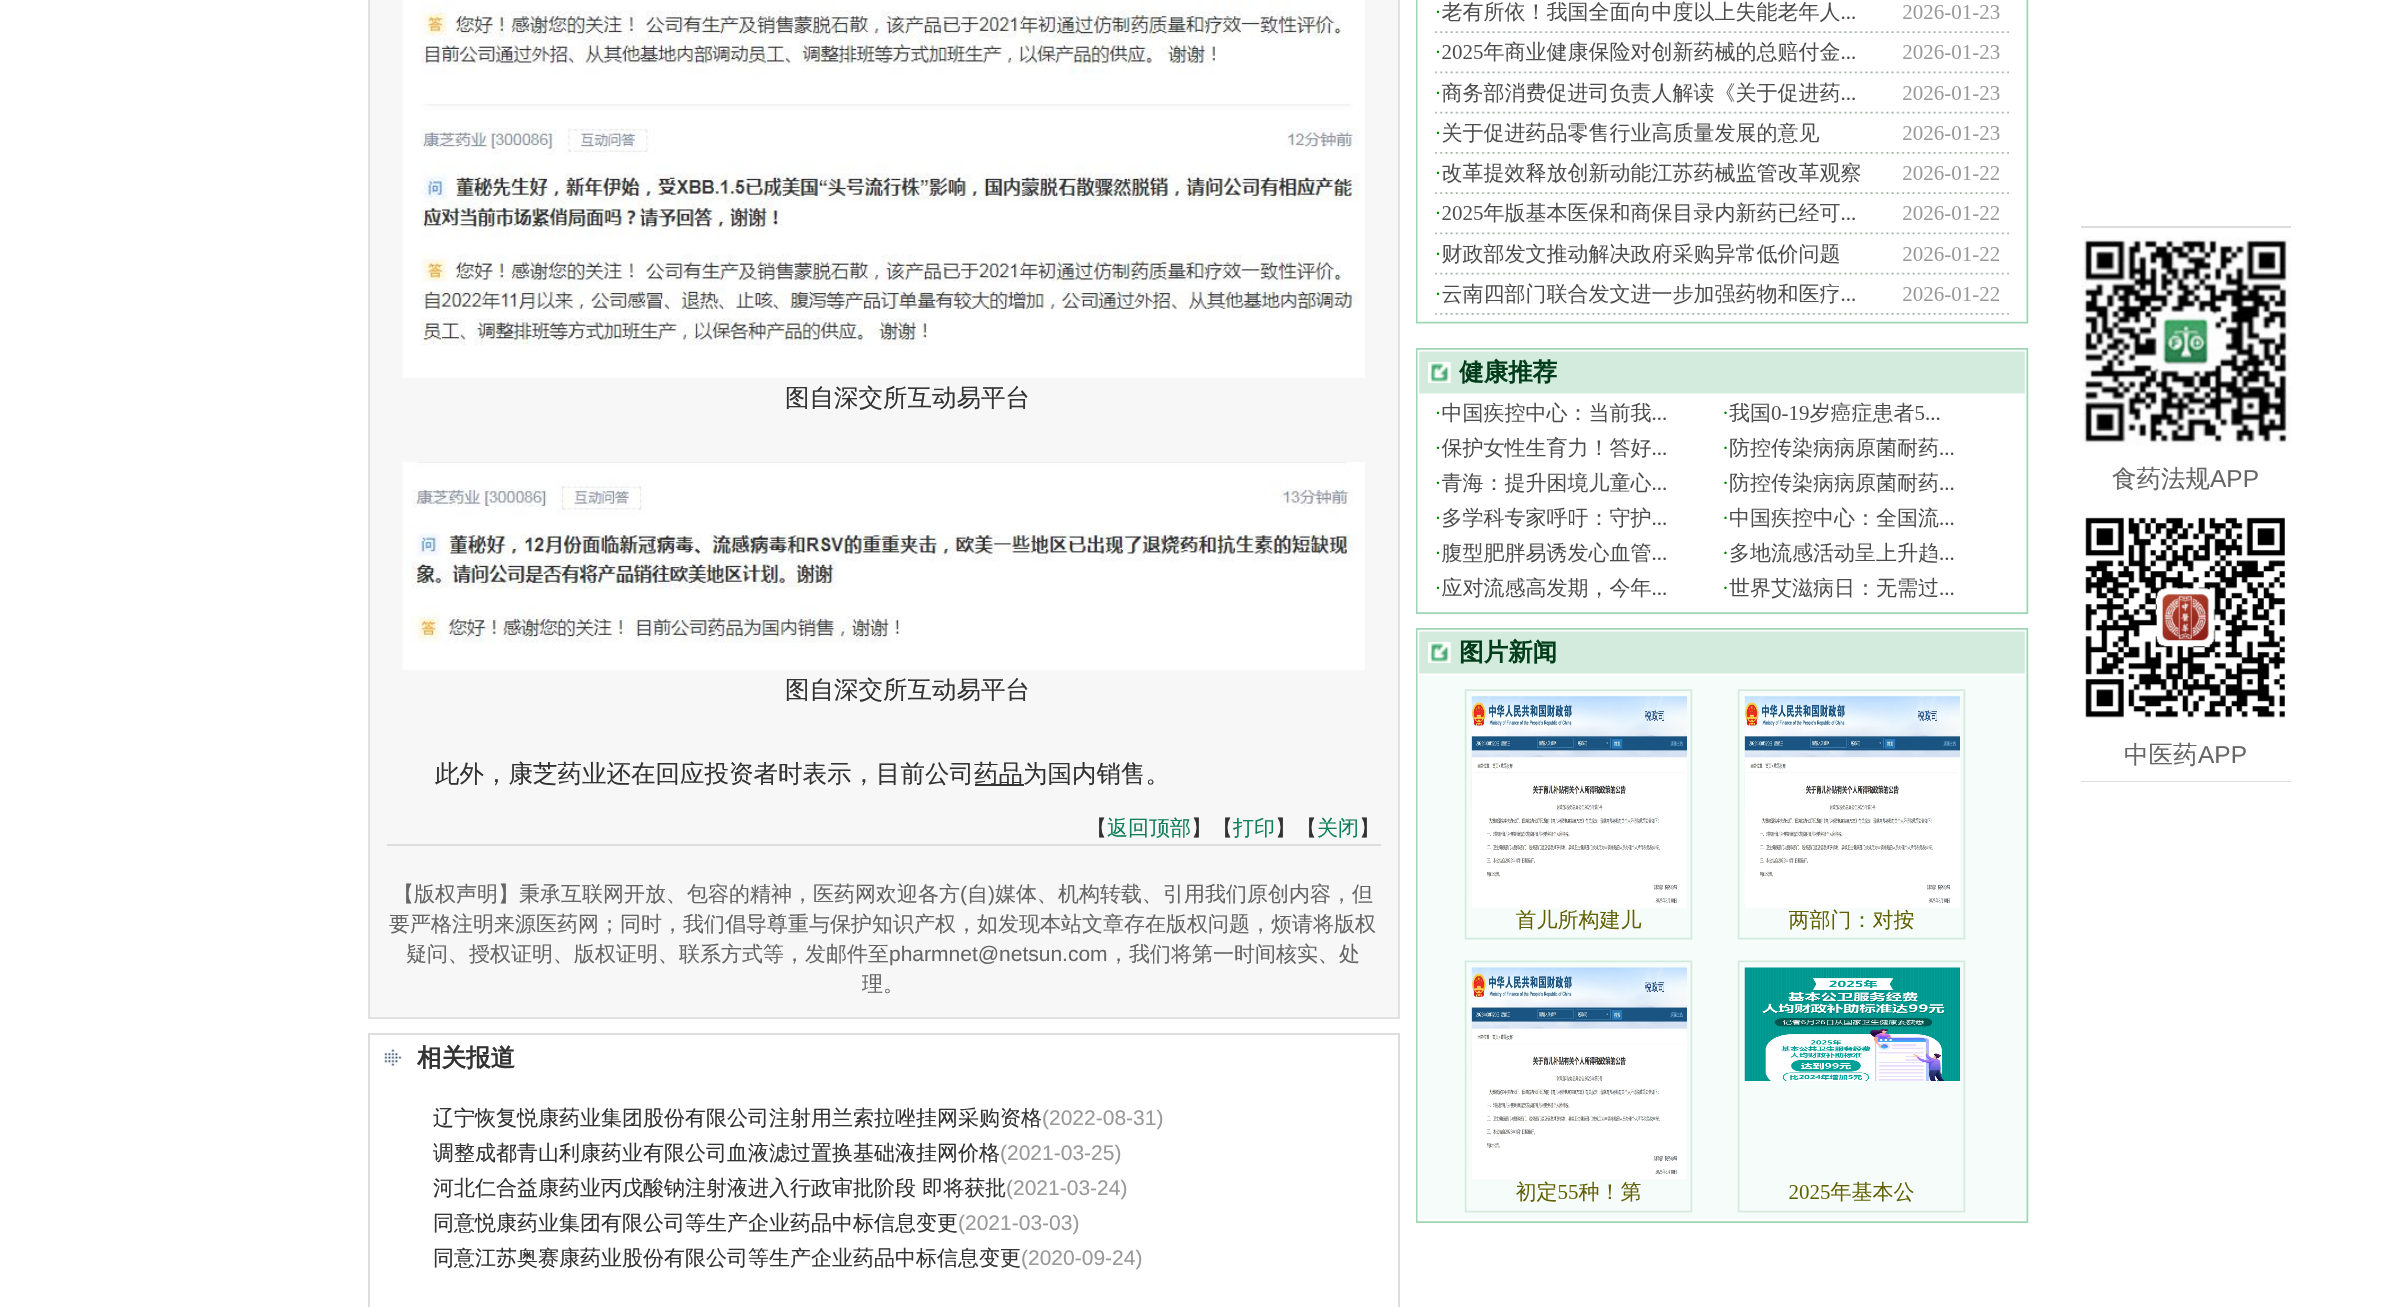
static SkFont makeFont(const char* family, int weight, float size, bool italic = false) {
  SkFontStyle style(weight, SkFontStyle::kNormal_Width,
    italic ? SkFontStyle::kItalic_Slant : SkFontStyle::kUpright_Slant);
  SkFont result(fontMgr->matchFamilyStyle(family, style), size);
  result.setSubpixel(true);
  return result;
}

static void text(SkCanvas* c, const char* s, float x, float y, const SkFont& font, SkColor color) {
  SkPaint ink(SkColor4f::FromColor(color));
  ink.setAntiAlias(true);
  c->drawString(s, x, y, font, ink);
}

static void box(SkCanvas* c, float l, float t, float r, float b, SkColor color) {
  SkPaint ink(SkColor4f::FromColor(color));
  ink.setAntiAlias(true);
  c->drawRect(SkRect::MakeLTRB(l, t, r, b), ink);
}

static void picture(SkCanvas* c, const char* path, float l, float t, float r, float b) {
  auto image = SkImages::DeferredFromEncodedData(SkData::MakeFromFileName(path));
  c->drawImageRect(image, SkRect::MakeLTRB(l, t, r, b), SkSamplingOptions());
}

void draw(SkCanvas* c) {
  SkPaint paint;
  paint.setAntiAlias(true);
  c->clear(0xffffffff);
  paint.setColor(0xfff7f7f7);
  c->drawRect(SkRect::MakeLTRB(369, -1, 1399, 1018), paint);
  paint.setStyle(SkPaint::kStroke_Style);
  paint.setStrokeWidth(2);
  paint.setColor(0xffe1e1e1);
  c->drawRect(SkRect::MakeLTRB(369, -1, 1399, 1018), paint);
  picture(c, "img_01.png", 402, 0, 1365, 378);
  SkFont face1 = makeFont("WenQuanYi Zen Hei", 500, 24.5f);
  text(c, "图自深交所互动易平台", 785, 406, face1, 0xff333333);
  picture(c, "img_02.png", 402, 462, 1365, 670);
  text(c, "图自深交所互动易平台", 785, 698, face1, 0xff333333);
  text(c, "此外，康芝药业还在回应投资者时表示，目前公司", 435, 782, face1, 0xff333333);
  box(c, 975, 784, 1024, 786, 0xff333333);
  text(c, "药品为国内销售。", 974, 782, face1, 0xff333333);
  SkFont face2 = makeFont("WenQuanYi Zen Hei", 500, 21);
  text(c, "【", 1086, 835, face2, 0xff333333);
  text(c, "返回顶部", 1107, 835, face2, 0xff0f7f5b);
  text(c, "】【", 1191, 835, face2, 0xff333333);
  text(c, "打印", 1233, 835, face2, 0xff0f7f5b);
  text(c, "】【", 1275, 835, face2, 0xff333333);
  text(c, "关闭", 1317, 835, face2, 0xff0f7f5b);
  text(c, "】", 1359, 835, face2, 0xff333333);
  box(c, 387, 844, 1381, 846, 0xffdddddd);
  text(c, "【版权声明】秉承互联网开放、包容的精神，医药网欢迎各方", 393, 901, face2, 0xff666666);
  SkFont face3 = makeFont("Liberation Sans", 400, 21);
  text(c, "(", 960, 901, face3, 0xff666666);
  text(c, "自", 967, 901, face2, 0xff666666);
  text(c, ")", 988, 901, face3, 0xff666666);
  text(c, "媒体、机构转载、引用我们原创内容，但", 995, 901, face2, 0xff666666);
  text(c, "要严格注明来源医药网；同时，我们倡导尊重与保护知识产权，如发现本站文章存在版权问题，烦请将版权", 389, 931, face2, 0xff666666);
  text(c, "疑问、授权证明、版权证明、联系方式等，发邮件至", 406, 961, face2, 0xff666666);
  text(c, "pharmnet@netsun.com", 889, 961, face3, 0xff666666);
  text(c, "，我们将第一时间核实、处", 1108, 961, face2, 0xff666666);
  text(c, "理。", 862, 991, face2, 0xff666666);
  paint.setColor(0xffdddddd);
  c->drawRect(SkRect::MakeLTRB(369, 1034, 1399, 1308), paint);
  picture(c, "img_03.png", 384, 1049, 402, 1066);
  SkFont face4 = makeFont("WenQuanYi Zen Hei", 700, 24.5f);
  text(c, "相关报道", 417, 1066, face4, 0xff333333);
  text(c, "辽宁恢复悦康药业集团股份有限公司注射用兰索拉唑挂网采购资格", 433, 1125, face2, 0xff333333);
  text(c, "(2022-08-31)", 1042, 1125, face3, 0xff999999);
  text(c, "调整成都青山利康药业有限公司血液滤过置换基础液挂网价格", 433, 1160, face2, 0xff333333);
  text(c, "(2021-03-25)", 1000, 1160, face3, 0xff999999);
  text(c, "河北仁合益康药业丙戊酸钠注射液进入行政审批阶段 即将获批", 433, 1195, face2, 0xff333333);
  text(c, "(2021-03-24)", 1006, 1195, face3, 0xff999999);
  text(c, "同意悦康药业集团有限公司等生产企业药品中标信息变更", 433, 1230, face2, 0xff333333);
  text(c, "(2021-03-03)", 958, 1230, face3, 0xff999999);
  text(c, "同意江苏奥赛康药业股份有限公司等生产企业药品中标信息变更", 433, 1265, face2, 0xff333333);
  text(c, "(2020-09-24)", 1021, 1265, face3, 0xff999999);
  picture(c, "img_04.png", 1416, 0, 2029, 1223);
  box(c, 2081, 226, 2291, 228, 0xffdddddd);
  box(c, 2081, 781, 2291, 782, 0xffdddddd);
  picture(c, "img_05.png", 2081, 236, 2291, 446);
  text(c, "食药法规", 2112, 487, face1, 0xff666666);
  SkFont face5 = makeFont("Liberation Sans", 400, 24.5f);
  text(c, "APP", 2210, 487, face5, 0xff666666);
  picture(c, "img_06.png", 2085, 517, 2285, 718);
  text(c, "中医药", 2124, 763, face1, 0xff666666);
  text(c, "APP", 2198, 763, face5, 0xff666666);
}
